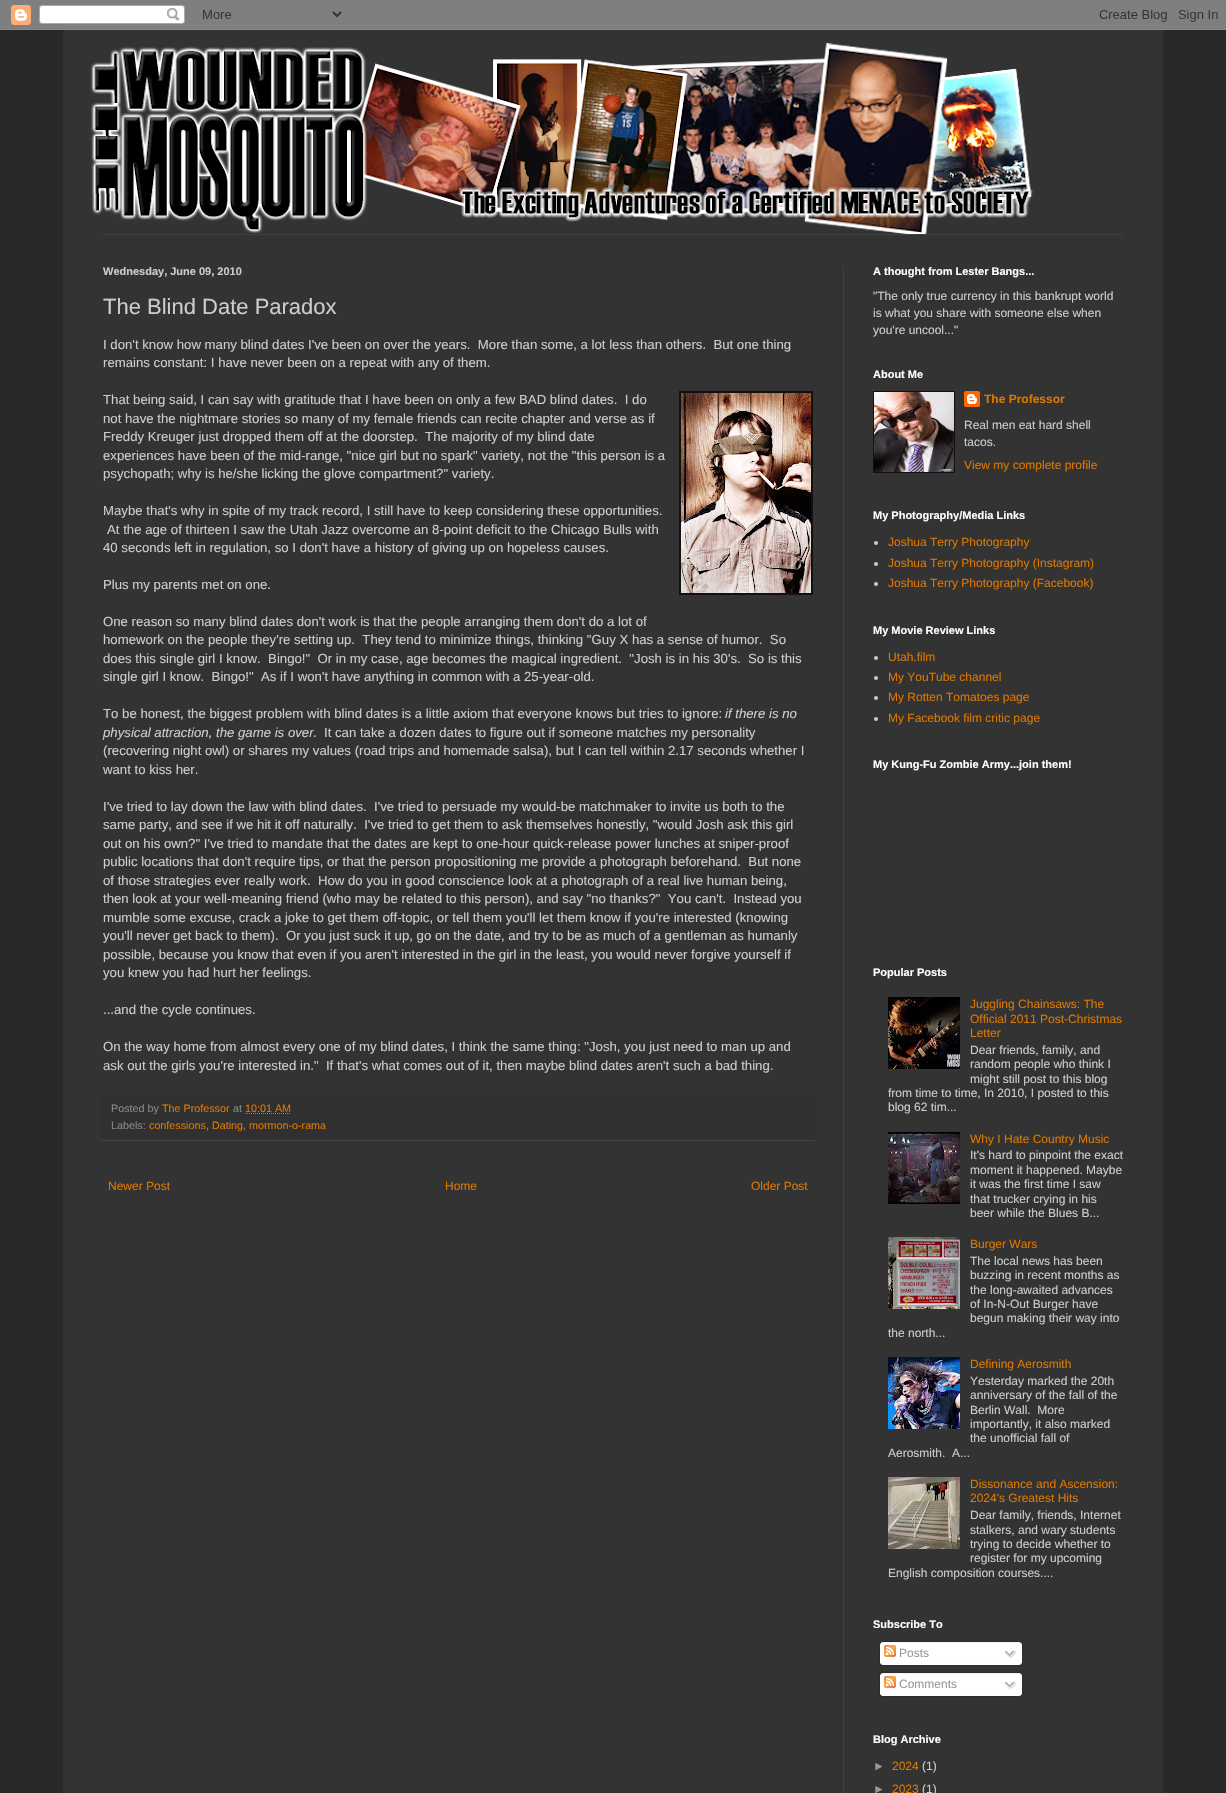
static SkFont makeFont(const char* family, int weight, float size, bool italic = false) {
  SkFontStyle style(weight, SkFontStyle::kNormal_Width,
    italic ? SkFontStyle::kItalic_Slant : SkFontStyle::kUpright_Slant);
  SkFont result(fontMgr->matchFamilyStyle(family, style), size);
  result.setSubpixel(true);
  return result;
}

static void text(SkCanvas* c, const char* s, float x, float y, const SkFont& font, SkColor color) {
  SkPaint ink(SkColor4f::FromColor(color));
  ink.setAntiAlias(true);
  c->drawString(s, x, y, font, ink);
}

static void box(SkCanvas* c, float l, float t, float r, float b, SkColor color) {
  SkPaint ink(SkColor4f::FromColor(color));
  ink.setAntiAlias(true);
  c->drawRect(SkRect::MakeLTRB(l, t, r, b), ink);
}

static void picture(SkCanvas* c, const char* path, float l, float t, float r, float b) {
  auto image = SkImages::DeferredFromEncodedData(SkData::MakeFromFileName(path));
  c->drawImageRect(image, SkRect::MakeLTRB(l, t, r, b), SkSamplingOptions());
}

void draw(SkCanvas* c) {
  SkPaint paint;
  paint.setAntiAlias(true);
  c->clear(0xff292929);
  picture(c, "img_01.png", 0, 0, 1226, 30);
  box(c, 63, 30, 1163, 1793, 0xff333333);
  picture(c, "img_02.png", 90, 42, 1033, 234);
  box(c, 103, 234, 1123, 235, 0xff404040);
  box(c, 843, 265, 844, 1793, 0xff404040);
  SkFont face1 = makeFont("Liberation Sans", 700, 11);
  text(c, "Wednesday, June 09, 2010", 103, 275, face1, 0xffcccccc);
  SkFont face2 = makeFont("Liberation Sans", 400, 22);
  text(c, "The Blind Date Paradox", 103, 314, face2, 0xffcccccc);
  SkFont face3 = makeFont("Liberation Sans", 400, 13.2f);
  text(c, "I don't know how many blind dates I've been on over the years.  More than some, a lot less than others.  But one thing", 103, 349, face3, 0xffcccccc);
  text(c, "remains constant: I have never been on a repeat with any of them.", 103, 367, face3, 0xffcccccc);
  text(c, "That being said, I can say with gratitude that I have been on only a few BAD blind dates.  I do", 103, 404, face3, 0xffcccccc);
  box(c, 679, 391, 813, 595, 0xff111111);
  picture(c, "img_03.png", 681, 393, 811, 593);
  text(c, "not have the nightmare stories so many of my female friends can recite chapter and verse as if", 103, 423, face3, 0xffcccccc);
  text(c, "Freddy Kreuger just dropped them off at the doorstep.  The majority of my blind date", 103, 441, face3, 0xffcccccc);
  text(c, "experiences have been of the mid-range, \"nice girl but no spark\" variety, not the \"this person is a", 103, 460, face3, 0xffcccccc);
  text(c, "psychopath; why is he/she licking the glove compartment?\" variety.", 103, 478, face3, 0xffcccccc);
  text(c, "Maybe that's why in spite of my track record, I still have to keep considering these opportunities.", 103, 515, face3, 0xffcccccc);
  text(c, "At the age of thirteen I saw the Utah Jazz overcome an 8-point deficit to the Chicago Bulls with", 107, 534, face3, 0xffcccccc);
  text(c, "40 seconds left in regulation, so I don't have a history of giving up on hopeless causes.", 103, 552, face3, 0xffcccccc);
  text(c, "Plus my parents met on one.", 103, 589, face3, 0xffcccccc);
  text(c, "One reason so many blind dates don't work is that the people arranging them don't do a lot of", 103, 626, face3, 0xffcccccc);
  text(c, "homework on the people they're setting up.  They tend to minimize things, thinking \"Guy X has a sense of humor.  So", 103, 644, face3, 0xffcccccc);
  text(c, "does this single girl I know.  Bingo!\"  Or in my case, age becomes the magical ingredient.  \"Josh is in his 30's.  So is this", 103, 663, face3, 0xffcccccc);
  text(c, "single girl I know.  Bingo!\"  As if I won't have anything in common with a 25-year-old.", 103, 681, face3, 0xffcccccc);
  text(c, "To be honest, the biggest problem with blind dates is a little axiom that everyone knows but tries to ignore:", 103, 718, face3, 0xffcccccc);
  SkFont face4 = makeFont("Liberation Sans", 400, 13.2f, true);
  text(c, "if there is no", 725, 718, face4, 0xffcccccc);
  text(c, "physical attraction, the game is over.", 103, 737, face4, 0xffcccccc);
  text(c, "It can take a dozen dates to figure out if someone matches my personality", 324, 737, face3, 0xffcccccc);
  text(c, "(recovering night owl) or shares my values (road trips and homemade salsa), but I can tell within 2.17 seconds whether I", 103, 755, face3, 0xffcccccc);
  text(c, "want to kiss her.", 103, 774, face3, 0xffcccccc);
  text(c, "I've tried to lay down the law with blind dates.  I've tried to persuade my would-be matchmaker to invite us both to the", 103, 811, face3, 0xffcccccc);
  text(c, "same party, and see if we hit it off naturally.  I've tried to get them to ask themselves honestly, \"would Josh ask this girl", 103, 829, face3, 0xffcccccc);
  text(c, "out on his own?\" I've tried to mandate that the dates are kept to one-hour quick-release power lunches at sniper-proof", 103, 848, face3, 0xffcccccc);
  text(c, "public locations that don't require tips, or that the person propositioning me provide a photograph beforehand.  But none", 103, 866, face3, 0xffcccccc);
  text(c, "of those strategies ever really work.  How do you in good conscience look at a photograph of a real live human being,", 103, 885, face3, 0xffcccccc);
  text(c, "then look at your well-meaning friend (who may be related to this person), and say \"no thanks?\"  You can't.  Instead you", 103, 903, face3, 0xffcccccc);
  text(c, "mumble some excuse, crack a joke to get them off-topic, or tell them you'll let them know if you're interested (knowing", 103, 922, face3, 0xffcccccc);
  text(c, "you'll never get back to them).  Or you just suck it up, go on the date, and try to be as much of a gentleman as humanly", 103, 940, face3, 0xffcccccc);
  text(c, "possible, because you know that even if you aren't interested in the girl in the least, you would never forgive yourself if", 103, 959, face3, 0xffcccccc);
  text(c, "you knew you had hurt her feelings.", 103, 977, face3, 0xffcccccc);
  text(c, "...and the cycle continues.", 103, 1014, face3, 0xffcccccc);
  text(c, "On the way home from almost every one of my blind dates, I think the same thing: \"Josh, you just need to man up and", 103, 1051, face3, 0xffcccccc);
  text(c, "ask out the girls you're interested in.\"  If that's what comes out of it, then maybe blind dates aren't such a bad thing.", 103, 1070, face3, 0xffcccccc);
  box(c, 101, 1095, 815, 1140, 0xff303030);
  box(c, 101, 1140, 815, 1141, 0xff444444);
  SkFont face5 = makeFont("Liberation Sans", 400, 10.75f);
  text(c, "Posted by", 111, 1112, face5, 0xff888888);
  text(c, "The Professor", 162, 1112, face5, 0xffdd7700);
  text(c, "at", 233, 1112, face5, 0xff888888);
  text(c, "10:01 AM", 245, 1112, face5, 0xffdd7700);
  paint.setStyle(SkPaint::kStroke_Style);
  paint.setStrokeWidth(1);
  paint.setColor(0xffdd7700);
  paint.setPathEffect(SkDashPathEffect::Make({{1, 1}}, 0));
  c->drawPath(SkPathBuilder().moveTo(245, 1113.5f).lineTo(291, 1113.5f).detach(), paint);
  paint.setPathEffect(nullptr);
  text(c, "Labels:", 111, 1129, face5, 0xff888888);
  text(c, "confessions", 149, 1129, face5, 0xffdd7700);
  text(c, ",", 206, 1129, face5, 0xff888888);
  text(c, "Dating", 212, 1129, face5, 0xffdd7700);
  text(c, ",", 243, 1129, face5, 0xff888888);
  text(c, "mormon-o-rama", 249, 1129, face5, 0xffdd7700);
  SkFont face6 = makeFont("Liberation Sans", 400, 12);
  text(c, "Newer Post", 108, 1190, face6, 0xffdd7700);
  text(c, "Home", 445, 1190, face6, 0xffdd7700);
  text(c, "Older Post", 751, 1190, face6, 0xffdd7700);
  text(c, "A thought from Lester Bangs...", 873, 275, face1, 0xffffffff);
  text(c, "\"The only true currency in this bankrupt world", 873, 300, face6, 0xffcccccc);
  text(c, "is what you share with someone else when", 873, 317, face6, 0xffcccccc);
  text(c, "you're uncool...\"", 873, 334, face6, 0xffcccccc);
  text(c, "About Me", 873, 378, face1, 0xffffffff);
  box(c, 873, 391, 955, 473, 0xff111111);
  picture(c, "img_04.png", 874, 392, 954, 472);
  picture(c, "img_05.png", 964, 391, 980, 407);
  SkFont face7 = makeFont("Liberation Sans", 700, 12);
  text(c, "The Professor", 984, 403, face7, 0xffdd7700);
  text(c, "Real men eat hard shell", 964, 429, face6, 0xffcccccc);
  text(c, "tacos.", 964, 446, face6, 0xffcccccc);
  text(c, "View my complete profile", 964, 469, face6, 0xffdd7700);
  text(c, "My Photography/Media Links", 873, 519, face1, 0xffffffff);
  paint.setStyle(SkPaint::kFill_Style);
  paint.setColor(0xffcccccc);
  c->drawCircle(876, 543, 2, paint);
  text(c, "Joshua Terry Photography", 888, 546, face6, 0xffdd7700);
  c->drawCircle(876, 564, 2, paint);
  text(c, "Joshua Terry Photography (Instagram)", 888, 567, face6, 0xffdd7700);
  c->drawCircle(876, 584, 2, paint);
  text(c, "Joshua Terry Photography (Facebook)", 888, 587, face6, 0xffdd7700);
  text(c, "My Movie Review Links", 873, 634, face1, 0xffffffff);
  c->drawCircle(876, 658, 2, paint);
  text(c, "Utah.film", 888, 661, face6, 0xffdd7700);
  c->drawCircle(876, 678, 2, paint);
  text(c, "My YouTube channel", 888, 681, face6, 0xffdd7700);
  c->drawCircle(876, 698, 2, paint);
  text(c, "My Rotten Tomatoes page", 888, 701, face6, 0xffdd7700);
  c->drawCircle(876, 719, 2, paint);
  text(c, "My Facebook film critic page", 888, 722, face6, 0xffdd7700);
  text(c, "My Kung-Fu Zombie Army...join them!", 873, 768, face1, 0xffffffff);
  text(c, "Popular Posts", 873, 976, face1, 0xffffffff);
  picture(c, "img_06.png", 888, 997, 960, 1069);
  text(c, "Juggling Chainsaws: The", 970, 1008, face6, 0xffdd7700);
  text(c, "Official 2011 Post-Christmas", 970, 1023, face6, 0xffdd7700);
  text(c, "Letter", 970, 1037, face6, 0xffdd7700);
  text(c, "Dear friends, family, and", 970, 1054, face6, 0xffcccccc);
  text(c, "random people who think I", 970, 1068, face6, 0xffcccccc);
  text(c, "might still post to this blog", 970, 1083, face6, 0xffcccccc);
  text(c, "from time to time, In 2010, I posted to this", 888, 1097, face6, 0xffcccccc);
  text(c, "blog 62 tim...", 888, 1111, face6, 0xffcccccc);
  picture(c, "img_07.png", 888, 1132, 960, 1204);
  text(c, "Why I Hate Country Music", 970, 1143, face6, 0xffdd7700);
  text(c, "It's hard to pinpoint the exact", 970, 1159, face6, 0xffcccccc);
  text(c, "moment it happened. Maybe", 970, 1174, face6, 0xffcccccc);
  text(c, "it was the first time I saw", 970, 1188, face6, 0xffcccccc);
  text(c, "that trucker crying in his", 970, 1203, face6, 0xffcccccc);
  text(c, "beer while the Blues B...", 970, 1217, face6, 0xffcccccc);
  picture(c, "img_08.png", 888, 1237, 960, 1309);
  text(c, "Burger Wars", 970, 1248, face6, 0xffdd7700);
  text(c, "The local news has been", 970, 1265, face6, 0xffcccccc);
  text(c, "buzzing in recent months as", 970, 1279, face6, 0xffcccccc);
  text(c, "the long-awaited advances", 970, 1294, face6, 0xffcccccc);
  text(c, "of In-N-Out Burger have", 970, 1308, face6, 0xffcccccc);
  text(c, "begun making their way into", 970, 1322, face6, 0xffcccccc);
  text(c, "the north...", 888, 1337, face6, 0xffcccccc);
  picture(c, "img_09.png", 888, 1357, 960, 1429);
  text(c, "Defining Aerosmith", 970, 1368, face6, 0xffdd7700);
  text(c, "Yesterday marked the 20th", 970, 1385, face6, 0xffcccccc);
  text(c, "anniversary of the fall of the", 970, 1399, face6, 0xffcccccc);
  text(c, "Berlin Wall.  More", 970, 1414, face6, 0xffcccccc);
  text(c, "importantly, it also marked", 970, 1428, face6, 0xffcccccc);
  text(c, "the unofficial fall of", 970, 1442, face6, 0xffcccccc);
  text(c, "Aerosmith.  A...", 888, 1457, face6, 0xffcccccc);
  picture(c, "img_10.png", 888, 1477, 960, 1549);
  text(c, "Dissonance and Ascension:", 970, 1488, face6, 0xffdd7700);
  text(c, "2024's Greatest Hits", 970, 1502, face6, 0xffdd7700);
  text(c, "Dear family, friends, Internet", 970, 1519, face6, 0xffcccccc);
  text(c, "stalkers, and wary students", 970, 1534, face6, 0xffcccccc);
  text(c, "trying to decide whether to", 970, 1548, face6, 0xffcccccc);
  text(c, "register for my upcoming", 970, 1562, face6, 0xffcccccc);
  text(c, "English composition courses....", 888, 1577, face6, 0xffcccccc);
  text(c, "Subscribe To", 873, 1628, face1, 0xffffffff);
  picture(c, "img_11.png", 879, 1641, 1023, 1663);
  picture(c, "img_12.png", 884, 1645, 896, 1657);
  text(c, "Posts", 899, 1657, face6, 0xff999999);
  picture(c, "img_13.png", 1004, 1650, 1017, 1659);
  picture(c, "img_14.png", 880, 1663, 1023, 1666);
  picture(c, "img_11.png", 879, 1672, 1023, 1694);
  picture(c, "img_12.png", 884, 1676, 896, 1688);
  text(c, "Comments", 899, 1688, face6, 0xff999999);
  picture(c, "img_13.png", 1004, 1681, 1017, 1690);
  picture(c, "img_14.png", 880, 1694, 1023, 1697);
  text(c, "Blog Archive", 873, 1743, face1, 0xffffffff);
  text(c, "►", 873, 1770, face6, 0xff999999);
  text(c, "2024", 892, 1770, face6, 0xffdd7700);
  text(c, "(1)", 922, 1770, face6, 0xffcccccc);
  text(c, "►", 873, 1793, face6, 0xff999999);
  text(c, "2023", 892, 1793, face6, 0xffdd7700);
  text(c, "(1)", 922, 1793, face6, 0xffcccccc);
}
